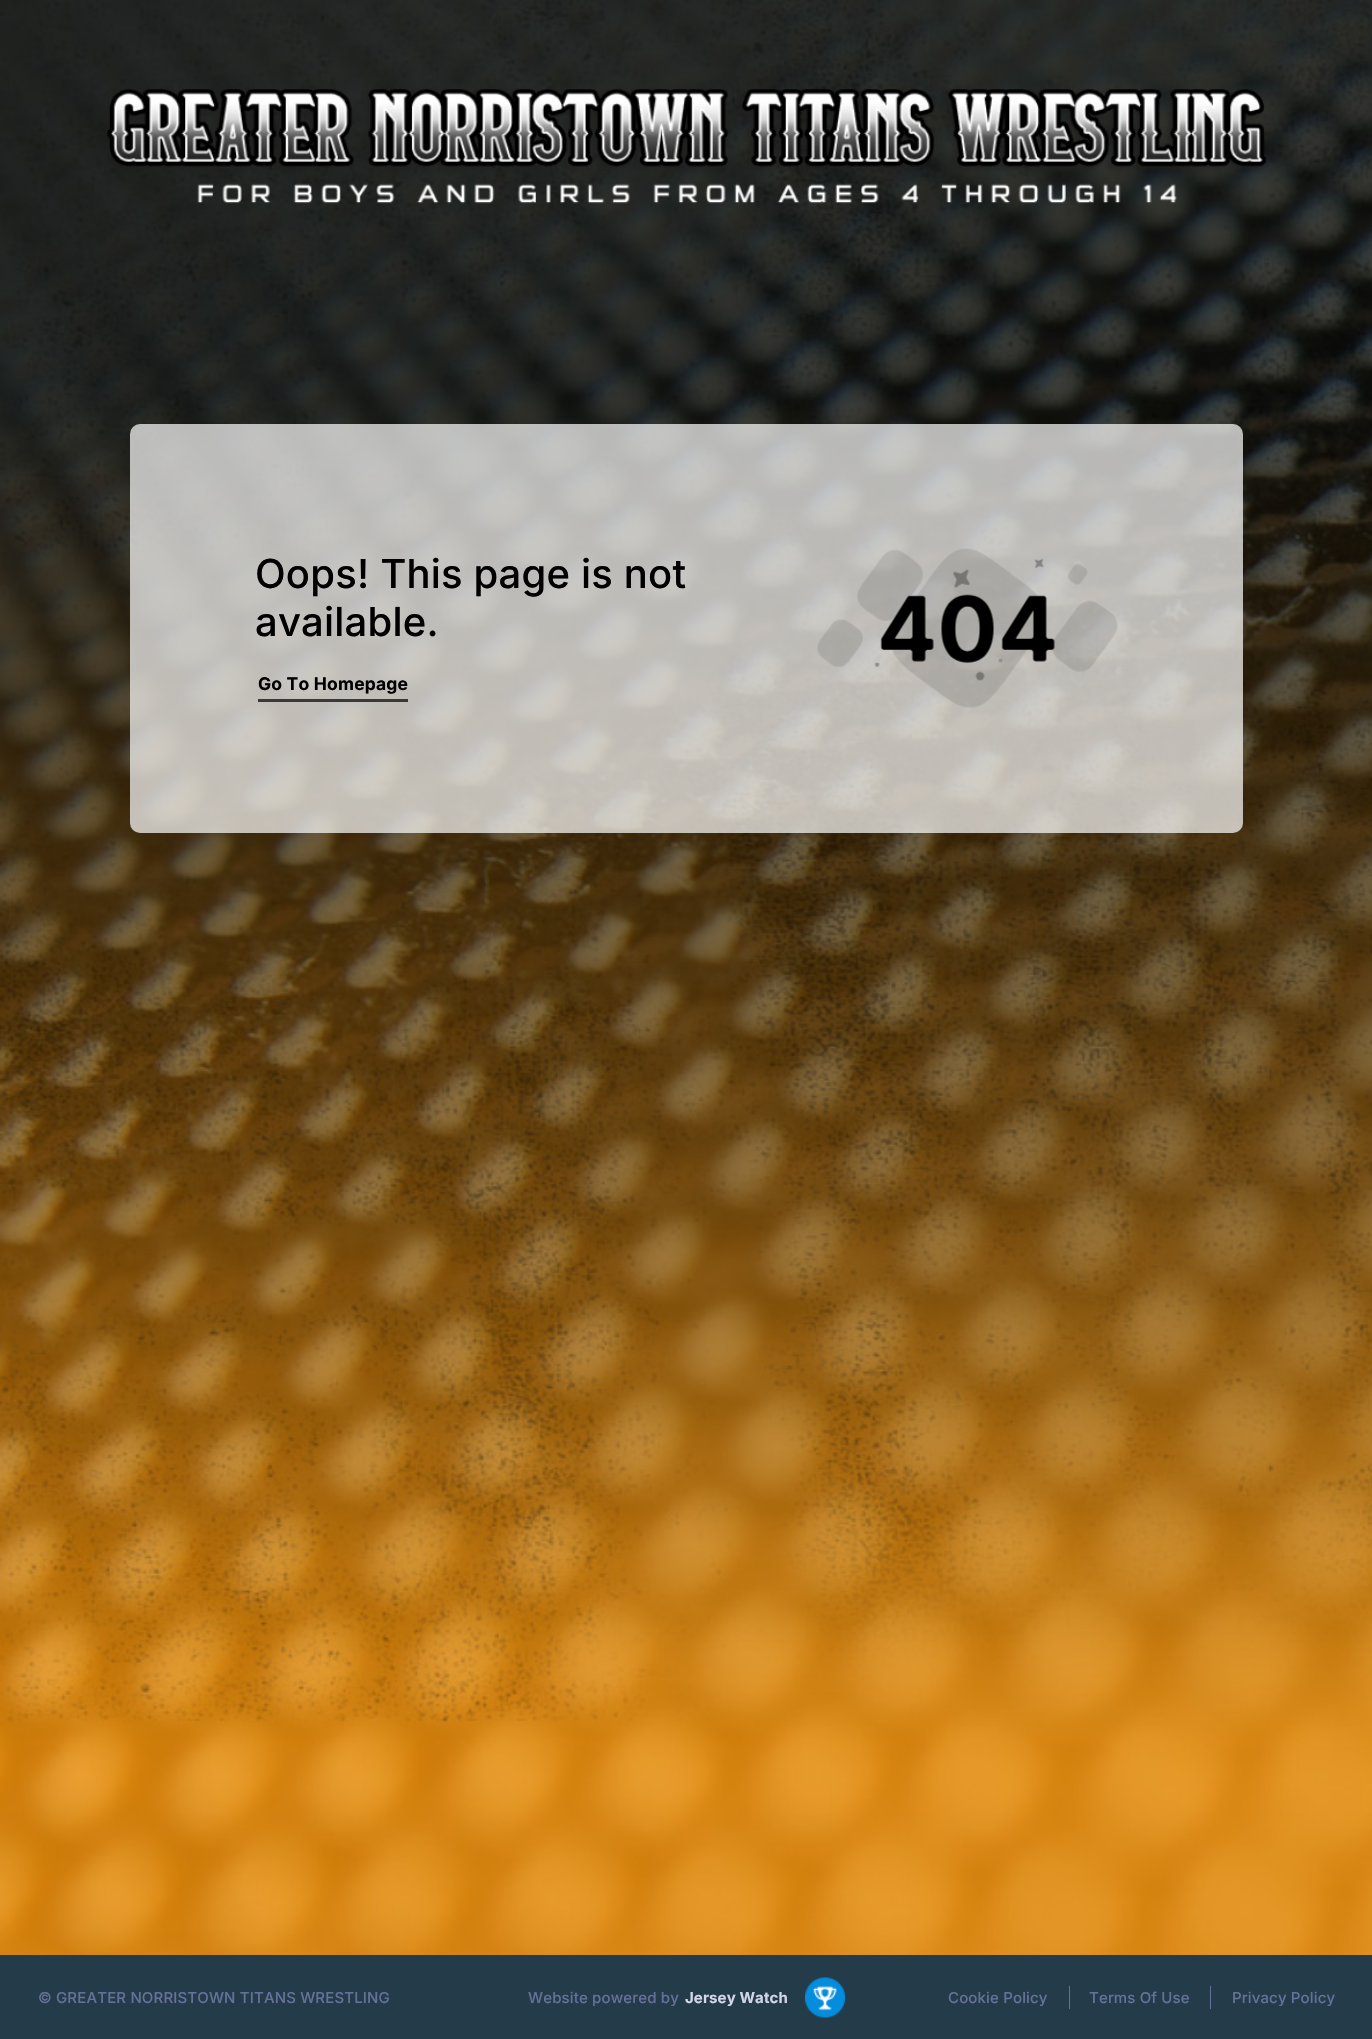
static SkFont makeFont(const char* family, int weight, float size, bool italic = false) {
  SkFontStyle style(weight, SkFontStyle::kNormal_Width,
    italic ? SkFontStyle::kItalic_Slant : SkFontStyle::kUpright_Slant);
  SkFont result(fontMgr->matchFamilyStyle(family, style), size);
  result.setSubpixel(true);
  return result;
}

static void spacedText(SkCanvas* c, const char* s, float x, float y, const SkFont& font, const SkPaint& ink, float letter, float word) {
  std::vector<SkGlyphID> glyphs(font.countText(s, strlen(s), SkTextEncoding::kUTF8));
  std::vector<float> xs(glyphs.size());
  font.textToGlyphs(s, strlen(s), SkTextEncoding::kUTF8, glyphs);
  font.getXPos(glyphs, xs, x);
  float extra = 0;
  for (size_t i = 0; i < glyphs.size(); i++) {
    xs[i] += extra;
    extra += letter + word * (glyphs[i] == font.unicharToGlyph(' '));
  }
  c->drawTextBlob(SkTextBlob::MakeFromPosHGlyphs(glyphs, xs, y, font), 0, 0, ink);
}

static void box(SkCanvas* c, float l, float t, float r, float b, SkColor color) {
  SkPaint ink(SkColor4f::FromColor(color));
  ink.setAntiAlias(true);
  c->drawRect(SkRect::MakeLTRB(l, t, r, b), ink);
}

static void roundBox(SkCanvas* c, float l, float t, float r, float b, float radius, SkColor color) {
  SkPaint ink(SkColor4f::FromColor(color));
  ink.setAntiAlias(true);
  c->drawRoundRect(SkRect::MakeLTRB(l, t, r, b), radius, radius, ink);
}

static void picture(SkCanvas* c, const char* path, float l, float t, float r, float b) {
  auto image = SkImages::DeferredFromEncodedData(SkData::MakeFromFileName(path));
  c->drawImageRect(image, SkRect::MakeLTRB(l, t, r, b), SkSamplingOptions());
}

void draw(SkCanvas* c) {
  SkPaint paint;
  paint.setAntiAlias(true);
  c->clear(0xff243b4a);
  picture(c, "img_01.png", 0, 0, 1372, 1955);
  picture(c, "img_02.png", 107, 89, 1267, 204);
  roundBox(c, 130, 424, 1243, 833, 10, 0xb3ffffff);
  SkFont face1 = makeFont("Inter", 500, 40);
  paint.setColor(0xff000000);
  spacedText(c, "Oops! This page is not", 255, 588, face1, paint, 0.2f, 0);
  spacedText(c, "available.", 255, 636, face1, paint, 0.2f, 0);
  SkFont face2 = makeFont("Inter", 700, 17.5f);
  spacedText(c, "Go To Homepage", 258, 690, face2, paint, 0.2f, 0);
  box(c, 258, 699, 408, 702, 0xb3000000);
  picture(c, "img_03.png", 817, 548, 1118, 708);
  SkFont face3 = makeFont("Inter", 500, 15);
  paint.setColor(0xff657197);
  spacedText(c, "© GREATER NORRISTOWN TITANS WRESTLING", 38, 2003, face3, paint, 0.15f, 0);
  spacedText(c, "Website powered by", 528, 2003, face3, paint, 0.15f, 0);
  SkFont face4 = makeFont("Inter", 700, 15);
  paint.setColor(0xffd3d6e9);
  spacedText(c, "Jersey Watch", 685, 2003, face4, paint, 0.1f, 0);
  picture(c, "img_04.png", 805, 1977, 845, 2018);
  paint.setColor(0xff657197);
  spacedText(c, "Cookie Policy", 948, 2003, face3, paint, 0.15f, 0);
  box(c, 1069, 1986, 1070, 2009, 0xff657197);
  spacedText(c, "Terms Of Use", 1089, 2003, face3, paint, 0.15f, 0);
  box(c, 1210, 1986, 1211, 2009, 0xff657197);
  spacedText(c, "Privacy Policy", 1232, 2003, face3, paint, 0.15f, 0);
}
